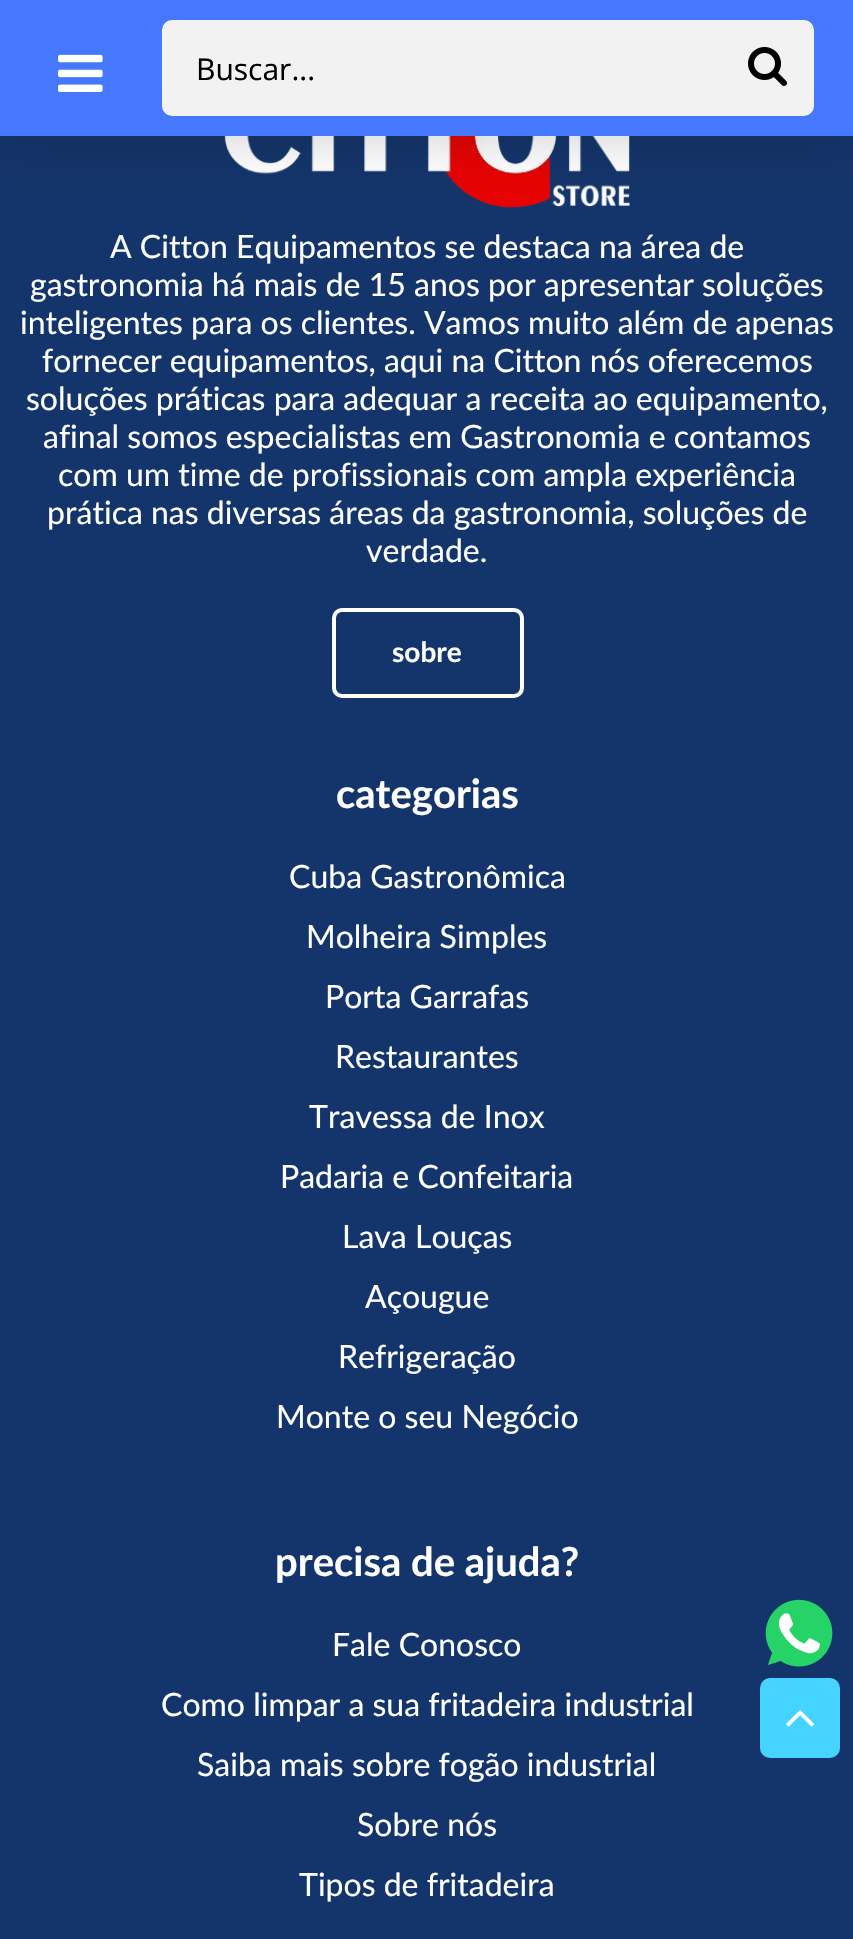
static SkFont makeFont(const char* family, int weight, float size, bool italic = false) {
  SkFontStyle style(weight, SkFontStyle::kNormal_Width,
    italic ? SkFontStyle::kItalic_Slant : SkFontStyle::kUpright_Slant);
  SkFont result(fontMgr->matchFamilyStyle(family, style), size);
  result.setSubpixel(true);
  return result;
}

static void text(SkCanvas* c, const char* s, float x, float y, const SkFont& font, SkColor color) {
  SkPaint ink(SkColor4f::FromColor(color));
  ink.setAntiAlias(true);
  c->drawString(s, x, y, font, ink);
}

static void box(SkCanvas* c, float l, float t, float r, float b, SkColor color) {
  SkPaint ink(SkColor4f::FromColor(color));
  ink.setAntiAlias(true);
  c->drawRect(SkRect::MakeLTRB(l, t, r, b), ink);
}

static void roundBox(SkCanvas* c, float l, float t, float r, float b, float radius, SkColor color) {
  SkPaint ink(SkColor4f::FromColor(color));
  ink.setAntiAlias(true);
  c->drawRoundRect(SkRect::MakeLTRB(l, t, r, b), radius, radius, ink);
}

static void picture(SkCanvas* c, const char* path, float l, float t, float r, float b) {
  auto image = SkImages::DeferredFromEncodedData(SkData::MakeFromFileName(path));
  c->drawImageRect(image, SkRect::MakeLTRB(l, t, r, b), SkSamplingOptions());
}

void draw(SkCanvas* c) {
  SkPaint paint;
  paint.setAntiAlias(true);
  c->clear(0xff14356b);
  picture(c, "img_03.png", 224, 136, 630, 208);
  paint.setColor(0x33000000);
  paint.setMaskFilter(SkMaskFilter::MakeBlur(kNormal_SkBlurStyle, 30));
  c->drawRect(SkRect::MakeLTRB(0, 0, 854, 136), paint);
  paint.setMaskFilter(nullptr);
  box(c, 0, 0, 853, 136, 0xff4577ff);
  picture(c, "img_01.png", 58, 54, 103, 92);
  roundBox(c, 162, 20, 814, 116, 10, 0xfff2f2f2);
  SkFont face1 = makeFont("Open Sans", 400, 30);
  text(c, "Buscar...", 196, 80, face1, 0xff000000);
  picture(c, "img_02.png", 748, 47, 787, 86);
  SkFont face2 = makeFont("Lato", 400, 32);
  text(c, "A Citton Equipamentos se destaca na área de", 110, 258, face2, 0xffffffff);
  text(c, "gastronomia há mais de 15 anos por apresentar soluções", 30, 296, face2, 0xffffffff);
  text(c, "inteligentes para os clientes. Vamos muito além de apenas", 20, 334, face2, 0xffffffff);
  text(c, "fornecer equipamentos, aqui na Citton nós oferecemos", 42, 372, face2, 0xffffffff);
  text(c, "soluções práticas para adequar a receita ao equipamento,", 26, 410, face2, 0xffffffff);
  text(c, "afinal somos especialistas em Gastronomia e contamos", 43, 448, face2, 0xffffffff);
  text(c, "com um time de profissionais com ampla experiência", 58, 486, face2, 0xffffffff);
  text(c, "prática nas diversas áreas da gastronomia, soluções de", 47, 524, face2, 0xffffffff);
  text(c, "verdade.", 366, 562, face2, 0xffffffff);
  paint.setStyle(SkPaint::kStroke_Style);
  paint.setStrokeWidth(4);
  paint.setColor(0xffffffff);
  c->drawRoundRect(SkRect::MakeLTRB(334, 610, 522, 696), 8, 8, paint);
  SkFont face3 = makeFont("Lato", 700, 28);
  text(c, "sobre", 392, 662, face3, 0xffffffff);
  SkFont face4 = makeFont("Lato", 700, 40);
  text(c, "categorias", 336, 808, face4, 0xffffffff);
  text(c, "Cuba Gastronômica", 289, 888, face2, 0xffffffff);
  text(c, "Molheira Simples", 306, 948, face2, 0xffffffff);
  text(c, "Porta Garrafas", 325, 1008, face2, 0xffffffff);
  text(c, "Restaurantes", 335, 1068, face2, 0xffffffff);
  text(c, "Travessa de Inox", 309, 1128, face2, 0xffffffff);
  text(c, "Padaria e Confeitaria", 280, 1188, face2, 0xffffffff);
  text(c, "Lava Louças", 342, 1248, face2, 0xffffffff);
  text(c, "Açougue", 365, 1308, face2, 0xffffffff);
  text(c, "Refrigeração", 338, 1368, face2, 0xffffffff);
  text(c, "Monte o seu Negócio", 276, 1428, face2, 0xffffffff);
  text(c, "precisa de ajuda?", 275, 1576, face4, 0xffffffff);
  text(c, "Fale Conosco", 332, 1656, face2, 0xffffffff);
  text(c, "Como limpar a sua fritadeira industrial", 161, 1716, face2, 0xffffffff);
  text(c, "Saiba mais sobre fogão industrial", 197, 1776, face2, 0xffffffff);
  text(c, "Sobre nós", 357, 1836, face2, 0xffffffff);
  text(c, "Tipos de fritadeira", 299, 1896, face2, 0xffffffff);
  picture(c, "img_04.png", 765, 1599, 833, 1667);
  roundBox(c, 760, 1678, 840, 1758, 10, 0xff45d4ff);
  picture(c, "img_05.png", 786, 1710, 814, 1727);
}
